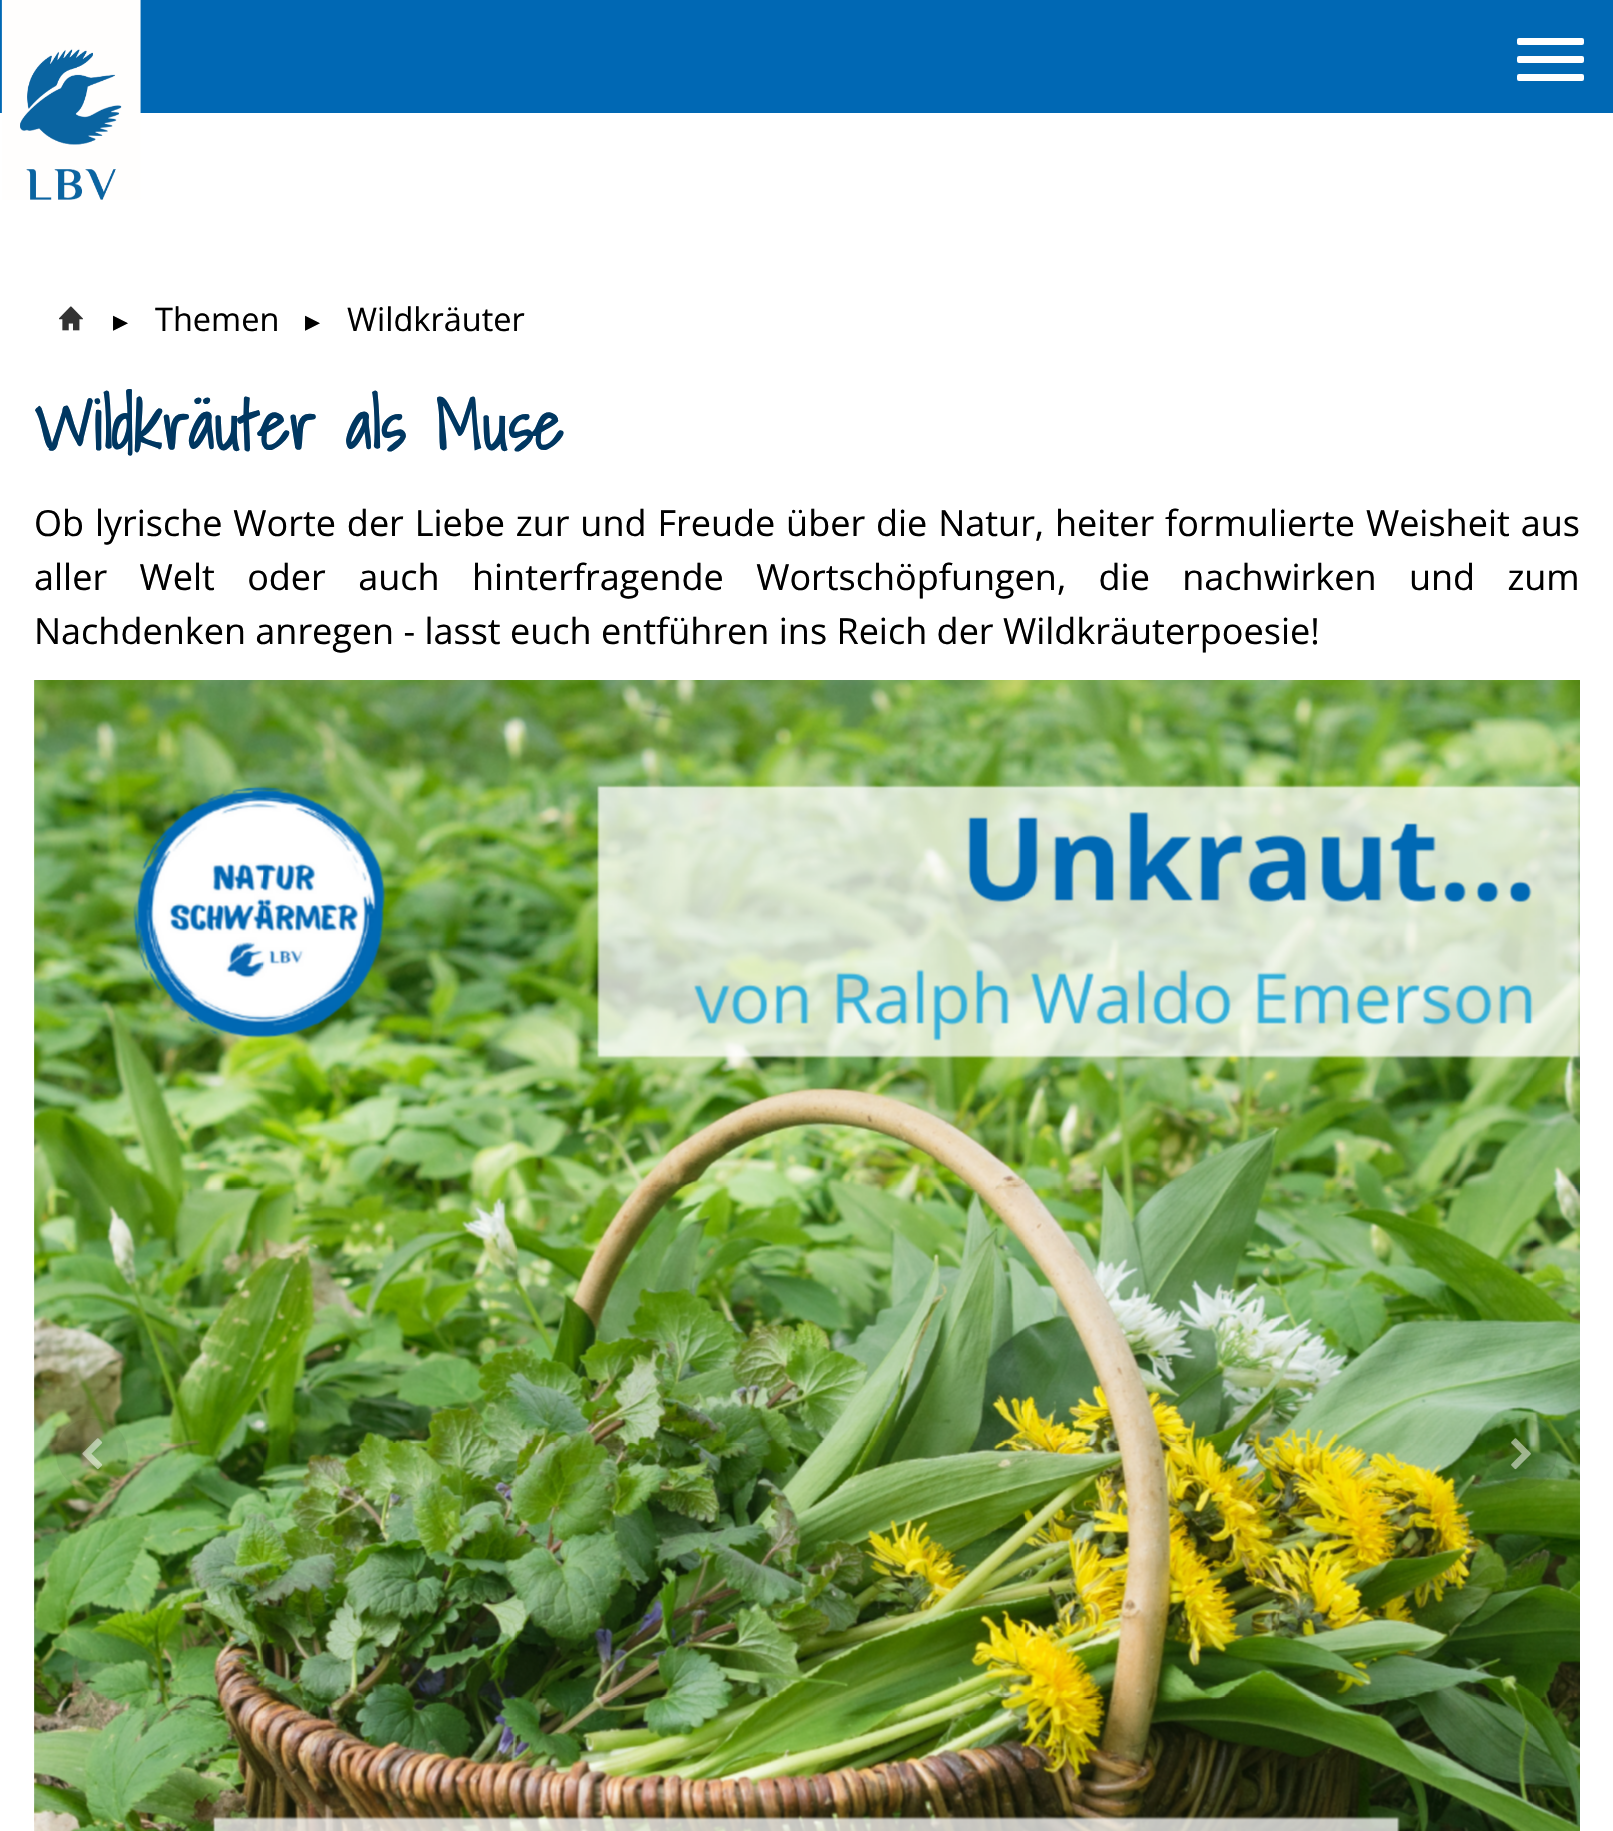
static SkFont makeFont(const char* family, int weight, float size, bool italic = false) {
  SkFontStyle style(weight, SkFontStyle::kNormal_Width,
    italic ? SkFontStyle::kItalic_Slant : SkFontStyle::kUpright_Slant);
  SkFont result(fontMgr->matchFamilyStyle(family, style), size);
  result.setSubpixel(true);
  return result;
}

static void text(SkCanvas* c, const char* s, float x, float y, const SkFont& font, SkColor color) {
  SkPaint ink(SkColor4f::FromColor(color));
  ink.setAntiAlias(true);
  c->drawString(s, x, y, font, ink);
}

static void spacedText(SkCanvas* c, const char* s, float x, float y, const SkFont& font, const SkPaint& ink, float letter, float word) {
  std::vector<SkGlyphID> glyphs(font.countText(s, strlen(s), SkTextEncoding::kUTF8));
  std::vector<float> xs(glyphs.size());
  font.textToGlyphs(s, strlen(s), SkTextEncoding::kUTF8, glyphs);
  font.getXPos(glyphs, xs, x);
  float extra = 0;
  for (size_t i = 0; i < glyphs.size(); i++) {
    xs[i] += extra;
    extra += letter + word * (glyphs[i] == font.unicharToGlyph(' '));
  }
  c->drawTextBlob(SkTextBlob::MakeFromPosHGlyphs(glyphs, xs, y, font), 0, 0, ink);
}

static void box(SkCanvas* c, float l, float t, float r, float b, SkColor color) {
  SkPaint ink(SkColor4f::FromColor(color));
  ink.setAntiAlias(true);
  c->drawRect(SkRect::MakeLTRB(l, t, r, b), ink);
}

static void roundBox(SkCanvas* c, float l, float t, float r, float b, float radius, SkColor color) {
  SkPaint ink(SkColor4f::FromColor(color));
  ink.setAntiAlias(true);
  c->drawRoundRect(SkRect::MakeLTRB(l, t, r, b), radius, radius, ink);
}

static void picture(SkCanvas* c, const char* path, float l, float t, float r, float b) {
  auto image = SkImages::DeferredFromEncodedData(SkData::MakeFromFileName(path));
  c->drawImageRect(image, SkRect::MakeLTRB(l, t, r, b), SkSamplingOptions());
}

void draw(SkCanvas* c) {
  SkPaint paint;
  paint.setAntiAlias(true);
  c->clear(0xffffffff);
  box(c, 0, 0, 1613, 113, 0xff0068b4);
  picture(c, "img_01.png", 1, 0, 141, 200);
  roundBox(c, 1517, 38, 1584, 45, 2, 0xffffffff);
  roundBox(c, 1517, 56, 1584, 63, 2, 0xffffffff);
  roundBox(c, 1517, 74, 1584, 81, 2, 0xffffffff);
  picture(c, "img_02.png", 59, 306, 83, 331);
  SkFont face1 = makeFont("DejaVu Sans", 400, 30);
  text(c, "▸", 113, 331, face1, 0xff000000);
  SkFont face2 = makeFont("Open Sans", 400, 32.5f);
  text(c, "Themen", 155, 331, face2, 0xff000000);
  text(c, "▸", 305, 331, face1, 0xff000000);
  text(c, "Wildkräuter", 347, 331, face2, 0xff000000);
  SkFont face3 = makeFont("Shadows Into Light", 700, 67.5f);
  text(c, "Wildkräuter als Muse", 34, 450, face3, 0xff003761);
  SkFont face4 = makeFont("Open Sans", 400, 36);
  paint.setColor(0xff000000);
  spacedText(c, "Ob lyrische Worte der Liebe zur und Freude über die Natur, heiter formulierte Weisheit aus", 34, 536, face4, paint, 0, 1.5f);
  spacedText(c, "aller Welt oder auch hinterfragende Wortschöpfungen, die nachwirken und zum", 34, 590, face4, paint, 0, 23);
  text(c, "Nachdenken anregen - lasst euch entführen ins Reich der Wildkräuterpoesie!", 34, 644, face4, 0xff000000);
  picture(c, "img_03.png", 34, 680, 1580, 1831);
  paint.setColor(0x12000000);
  c->drawCircle(92, 1454, 36, paint);
  picture(c, "img_04.png", 82, 1438, 103, 1470);
  c->drawCircle(1521, 1454, 36, paint);
  picture(c, "img_05.png", 1511, 1438, 1531, 1470);
}
